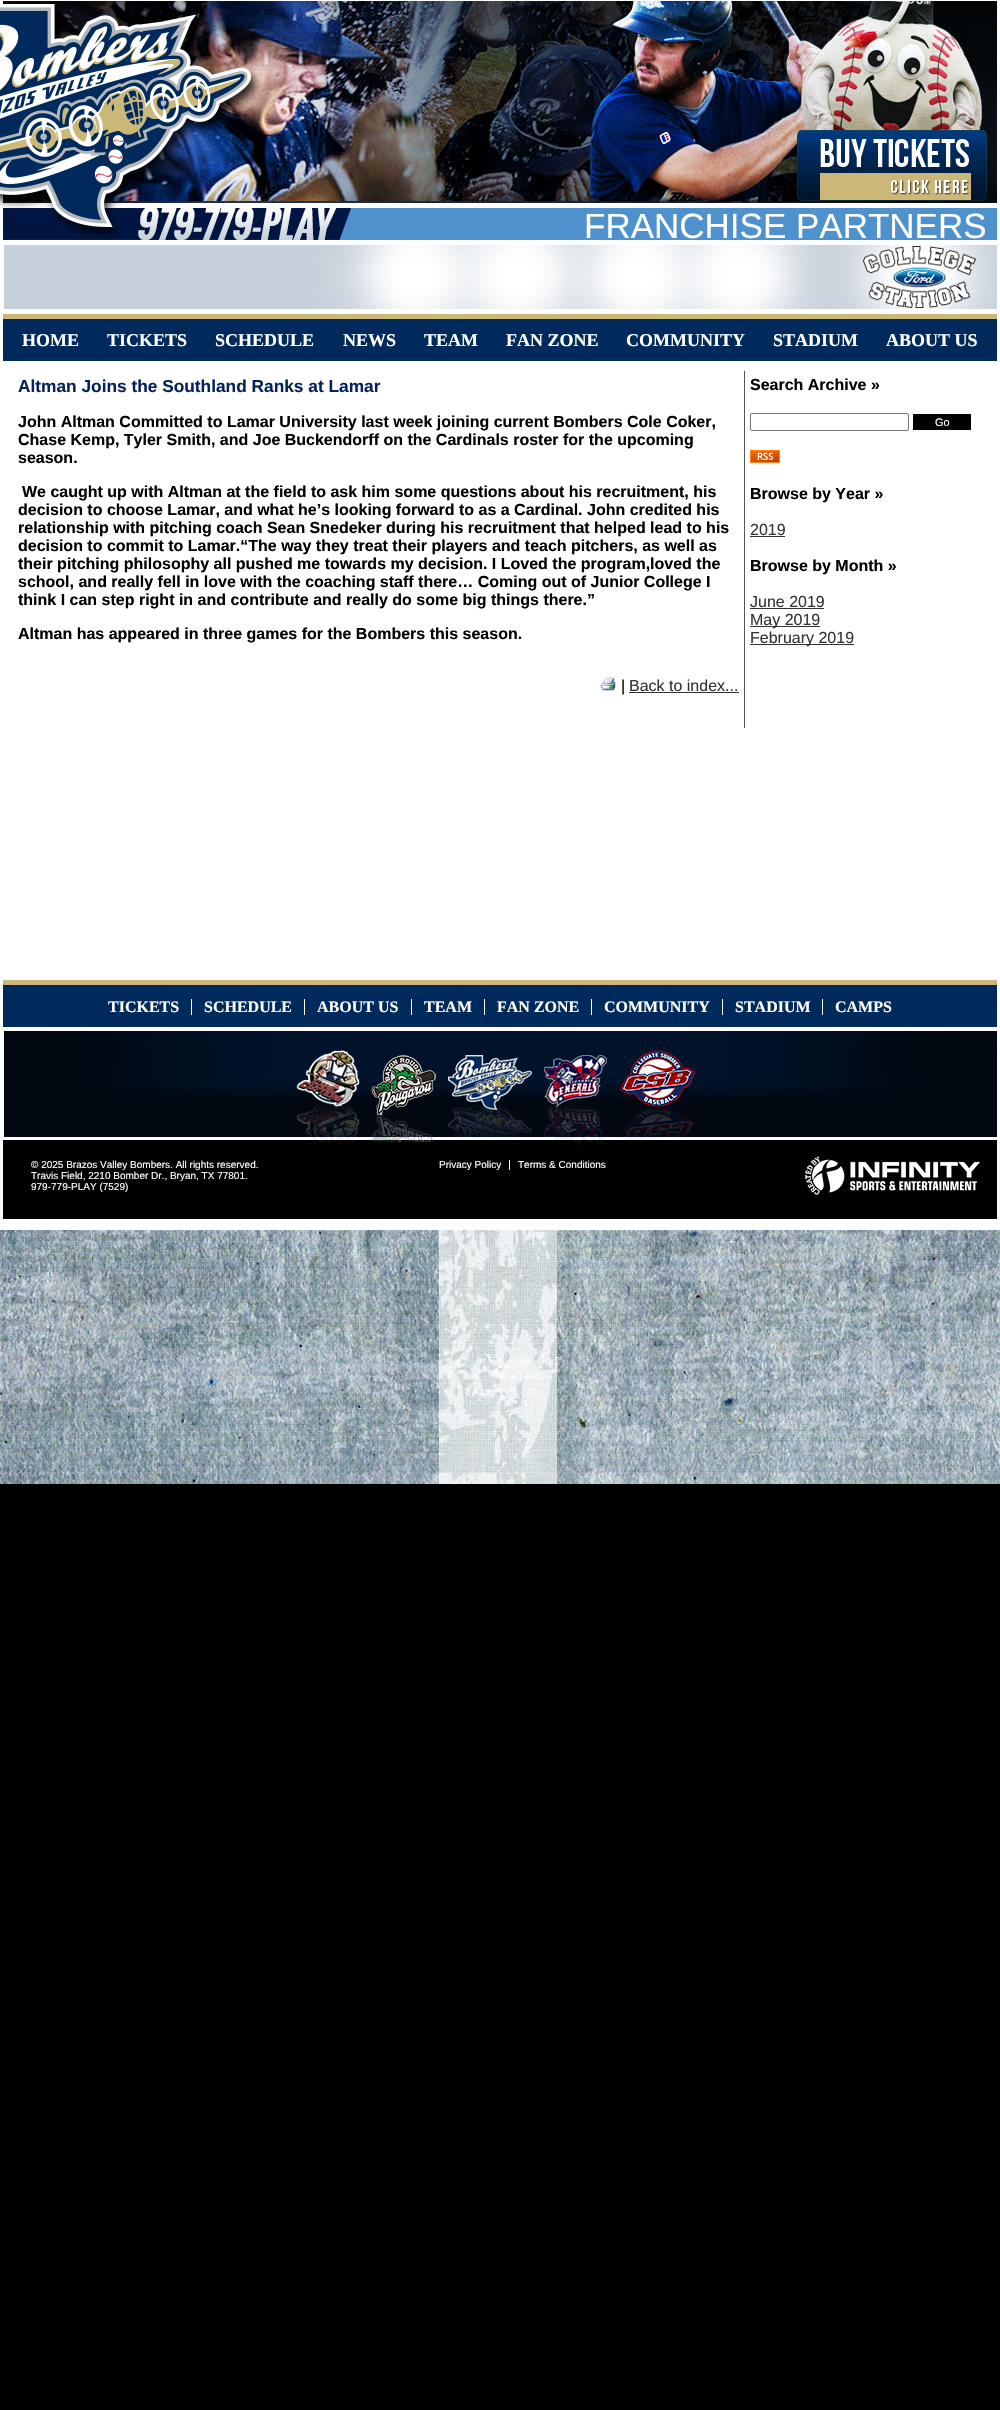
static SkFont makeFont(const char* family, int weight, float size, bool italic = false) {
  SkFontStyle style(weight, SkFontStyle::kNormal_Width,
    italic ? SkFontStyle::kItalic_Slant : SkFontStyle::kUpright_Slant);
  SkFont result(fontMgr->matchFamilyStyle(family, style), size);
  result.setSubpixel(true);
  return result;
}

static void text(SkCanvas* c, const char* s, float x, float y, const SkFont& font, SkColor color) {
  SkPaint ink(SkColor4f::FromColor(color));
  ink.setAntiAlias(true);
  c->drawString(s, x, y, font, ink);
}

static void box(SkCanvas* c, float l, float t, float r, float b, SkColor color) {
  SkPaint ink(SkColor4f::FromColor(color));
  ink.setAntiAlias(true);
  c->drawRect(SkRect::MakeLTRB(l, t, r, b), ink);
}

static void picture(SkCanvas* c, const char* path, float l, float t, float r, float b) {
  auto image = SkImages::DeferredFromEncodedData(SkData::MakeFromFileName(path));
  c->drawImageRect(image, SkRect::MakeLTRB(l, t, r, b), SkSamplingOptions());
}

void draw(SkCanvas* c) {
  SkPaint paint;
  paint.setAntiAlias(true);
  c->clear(0xff000000);
  picture(c, "img_01.png", 0, 1230, 1000, 1484);
  box(c, 0, 0, 1000, 1230, 0xffffffff);
  picture(c, "img_02.png", 3, 1, 997, 203);
  box(c, 3, 208, 997, 240, 0xff4f91cd);
  picture(c, "img_05.png", 3, 208, 352, 240);
  picture(c, "img_03.png", 0, 3, 262, 240);
  picture(c, "img_04.png", 797, 130, 987, 201);
  SkFont face1 = makeFont("Liberation Sans", 400, 35);
  text(c, "FRANCHISE PARTNERS", 584, 238, face1, 0xffffffff);
  picture(c, "img_06.png", 4, 245, 997, 309);
  picture(c, "img_07.png", 863, 246, 976, 308);
  box(c, 3, 319, 997, 361, 0xff002a5c);
  box(c, 3, 314, 997, 319, 0xffcbb778);
  SkFont face2 = makeFont("Liberation Serif", 700, 18);
  text(c, "HOME", 22, 346, face2, 0xffffffff);
  text(c, "TICKETS", 107, 346, face2, 0xffffffff);
  text(c, "SCHEDULE", 215, 346, face2, 0xffffffff);
  text(c, "NEWS", 343, 346, face2, 0xffffffff);
  text(c, "TEAM", 424, 346, face2, 0xffffffff);
  text(c, "FAN ZONE", 506, 346, face2, 0xffffffff);
  text(c, "COMMUNITY", 626, 346, face2, 0xffffffff);
  text(c, "STADIUM", 773, 346, face2, 0xffffffff);
  text(c, "ABOUT US", 886, 346, face2, 0xffffffff);
  SkFont face3 = makeFont("Liberation Sans", 700, 17.3f);
  text(c, "Altman Joins the Southland Ranks at Lamar", 18, 392, face3, 0xff06225d);
  SkFont face4 = makeFont("Liberation Sans", 700, 16);
  text(c, "John Altman Committed to Lamar University last week joining current Bombers Cole Coker,", 18, 427, face4, 0xff000000);
  text(c, "Chase Kemp, Tyler Smith, and Joe Buckendorff on the Cardinals roster for the upcoming", 18, 445, face4, 0xff000000);
  text(c, "season.", 18, 463, face4, 0xff000000);
  text(c, "We caught up with Altman at the field to ask him some questions about his recruitment, his", 22, 497, face4, 0xff000000);
  text(c, "decision to choose Lamar, and what he’s looking forward to as a Cardinal. John credited his", 18, 515, face4, 0xff000000);
  text(c, "relationship with pitching coach Sean Snedeker during his recruitment that helped lead to his", 18, 533, face4, 0xff000000);
  text(c, "decision to commit to Lamar.“The way they treat their players and teach pitchers, as well as", 18, 551, face4, 0xff000000);
  text(c, "their pitching philosophy all pushed me towards my decision. I Loved the program,loved the", 18, 569, face4, 0xff000000);
  text(c, "school, and really fell in love with the coaching staff there… Coming out of Junior College I", 18, 587, face4, 0xff000000);
  text(c, "think I can step right in and contribute and really do some big things there.”", 18, 605, face4, 0xff000000);
  text(c, "Altman has appeared in three games for the Bombers this season.", 18, 639, face4, 0xff000000);
  picture(c, "img_08.png", 600, 677, 616, 691);
  SkFont face5 = makeFont("Liberation Sans", 400, 16);
  text(c, "|", 621, 691, face5, 0xff000000);
  text(c, "Back to index...", 629, 691, face5, 0xff333333);
  box(c, 629, 692, 739, 693, 0xff333333);
  box(c, 744, 371, 745, 728, 0xff555555);
  text(c, "Search Archive »", 750, 390, face4, 0xff000000);
  paint.setStyle(SkPaint::kStroke_Style);
  paint.setStrokeWidth(1);
  paint.setColor(0xff767676);
  c->drawRoundRect(SkRect::MakeLTRB(750.5f, 413.5f, 908.5f, 430.5f), 1.5f, 1.5f, paint);
  box(c, 913, 414, 971, 430, 0xff000000);
  SkFont face6 = makeFont("Liberation Sans", 400, 11);
  text(c, "Go", 935, 426, face6, 0xffffffff);
  picture(c, "img_09.png", 750, 450, 780, 463);
  text(c, "Browse by Year »", 750, 499, face4, 0xff000000);
  text(c, "2019", 750, 535, face5, 0xff333333);
  box(c, 750, 536, 785, 537, 0xff333333);
  text(c, "Browse by Month »", 750, 571, face4, 0xff000000);
  text(c, "June 2019", 750, 607, face5, 0xff333333);
  box(c, 750, 608, 824, 609, 0xff333333);
  box(c, 750, 626, 820, 627, 0xff333333);
  text(c, "May 2019", 750, 625, face5, 0xff333333);
  box(c, 750, 644, 854, 645, 0xff333333);
  text(c, "February 2019", 750, 643, face5, 0xff333333);
  box(c, 3, 985, 997, 1027, 0xff002a5c);
  box(c, 3, 980, 997, 985, 0xffcbb778);
  SkFont face7 = makeFont("Liberation Serif", 700, 16);
  text(c, "TICKETS", 108, 1012, face7, 0xffffffff);
  box(c, 191, 999, 192, 1015, 0xffffffff);
  text(c, "SCHEDULE", 204, 1012, face7, 0xffffffff);
  box(c, 304, 999, 305, 1015, 0xffffffff);
  text(c, "ABOUT US", 317, 1012, face7, 0xffffffff);
  box(c, 411, 999, 412, 1015, 0xffffffff);
  text(c, "TEAM", 424, 1012, face7, 0xffffffff);
  box(c, 484, 999, 485, 1015, 0xffffffff);
  text(c, "FAN ZONE", 497, 1012, face7, 0xffffffff);
  box(c, 591, 999, 592, 1015, 0xffffffff);
  text(c, "COMMUNITY", 604, 1012, face7, 0xffffffff);
  box(c, 722, 999, 723, 1015, 0xffffffff);
  text(c, "STADIUM", 735, 1012, face7, 0xffffffff);
  box(c, 822, 999, 823, 1015, 0xffffffff);
  text(c, "CAMPS", 835, 1012, face7, 0xffffffff);
  picture(c, "img_10.png", 4, 1031, 997, 1137);
  box(c, 3, 1140, 997, 1219, 0xff000000);
  picture(c, "img_11.png", 296, 1050, 360, 1145);
  picture(c, "img_12.png", 371, 1055, 436, 1142);
  picture(c, "img_13.png", 448, 1055, 532, 1140);
  picture(c, "img_14.png", 544, 1055, 607, 1145);
  picture(c, "img_15.png", 620, 1050, 695, 1144);
  SkFont face8 = makeFont("Liberation Sans", 400, 10);
  text(c, "© 2025 Brazos Valley Bombers. All rights reserved.", 31, 1168, face8, 0xffffffff);
  text(c, "Privacy Policy", 439, 1168, face8, 0xffffffff);
  box(c, 509, 1160, 510, 1170, 0xffffffff);
  text(c, "Terms & Conditions", 518, 1168, face8, 0xffffffff);
  text(c, "Travis Field, 2210 Bomber Dr., Bryan, TX 77801.", 31, 1179, face8, 0xffffffff);
  text(c, "979-779-PLAY (7529)", 31, 1190, face8, 0xffffffff);
  picture(c, "img_16.png", 805, 1156, 980, 1195);
}
